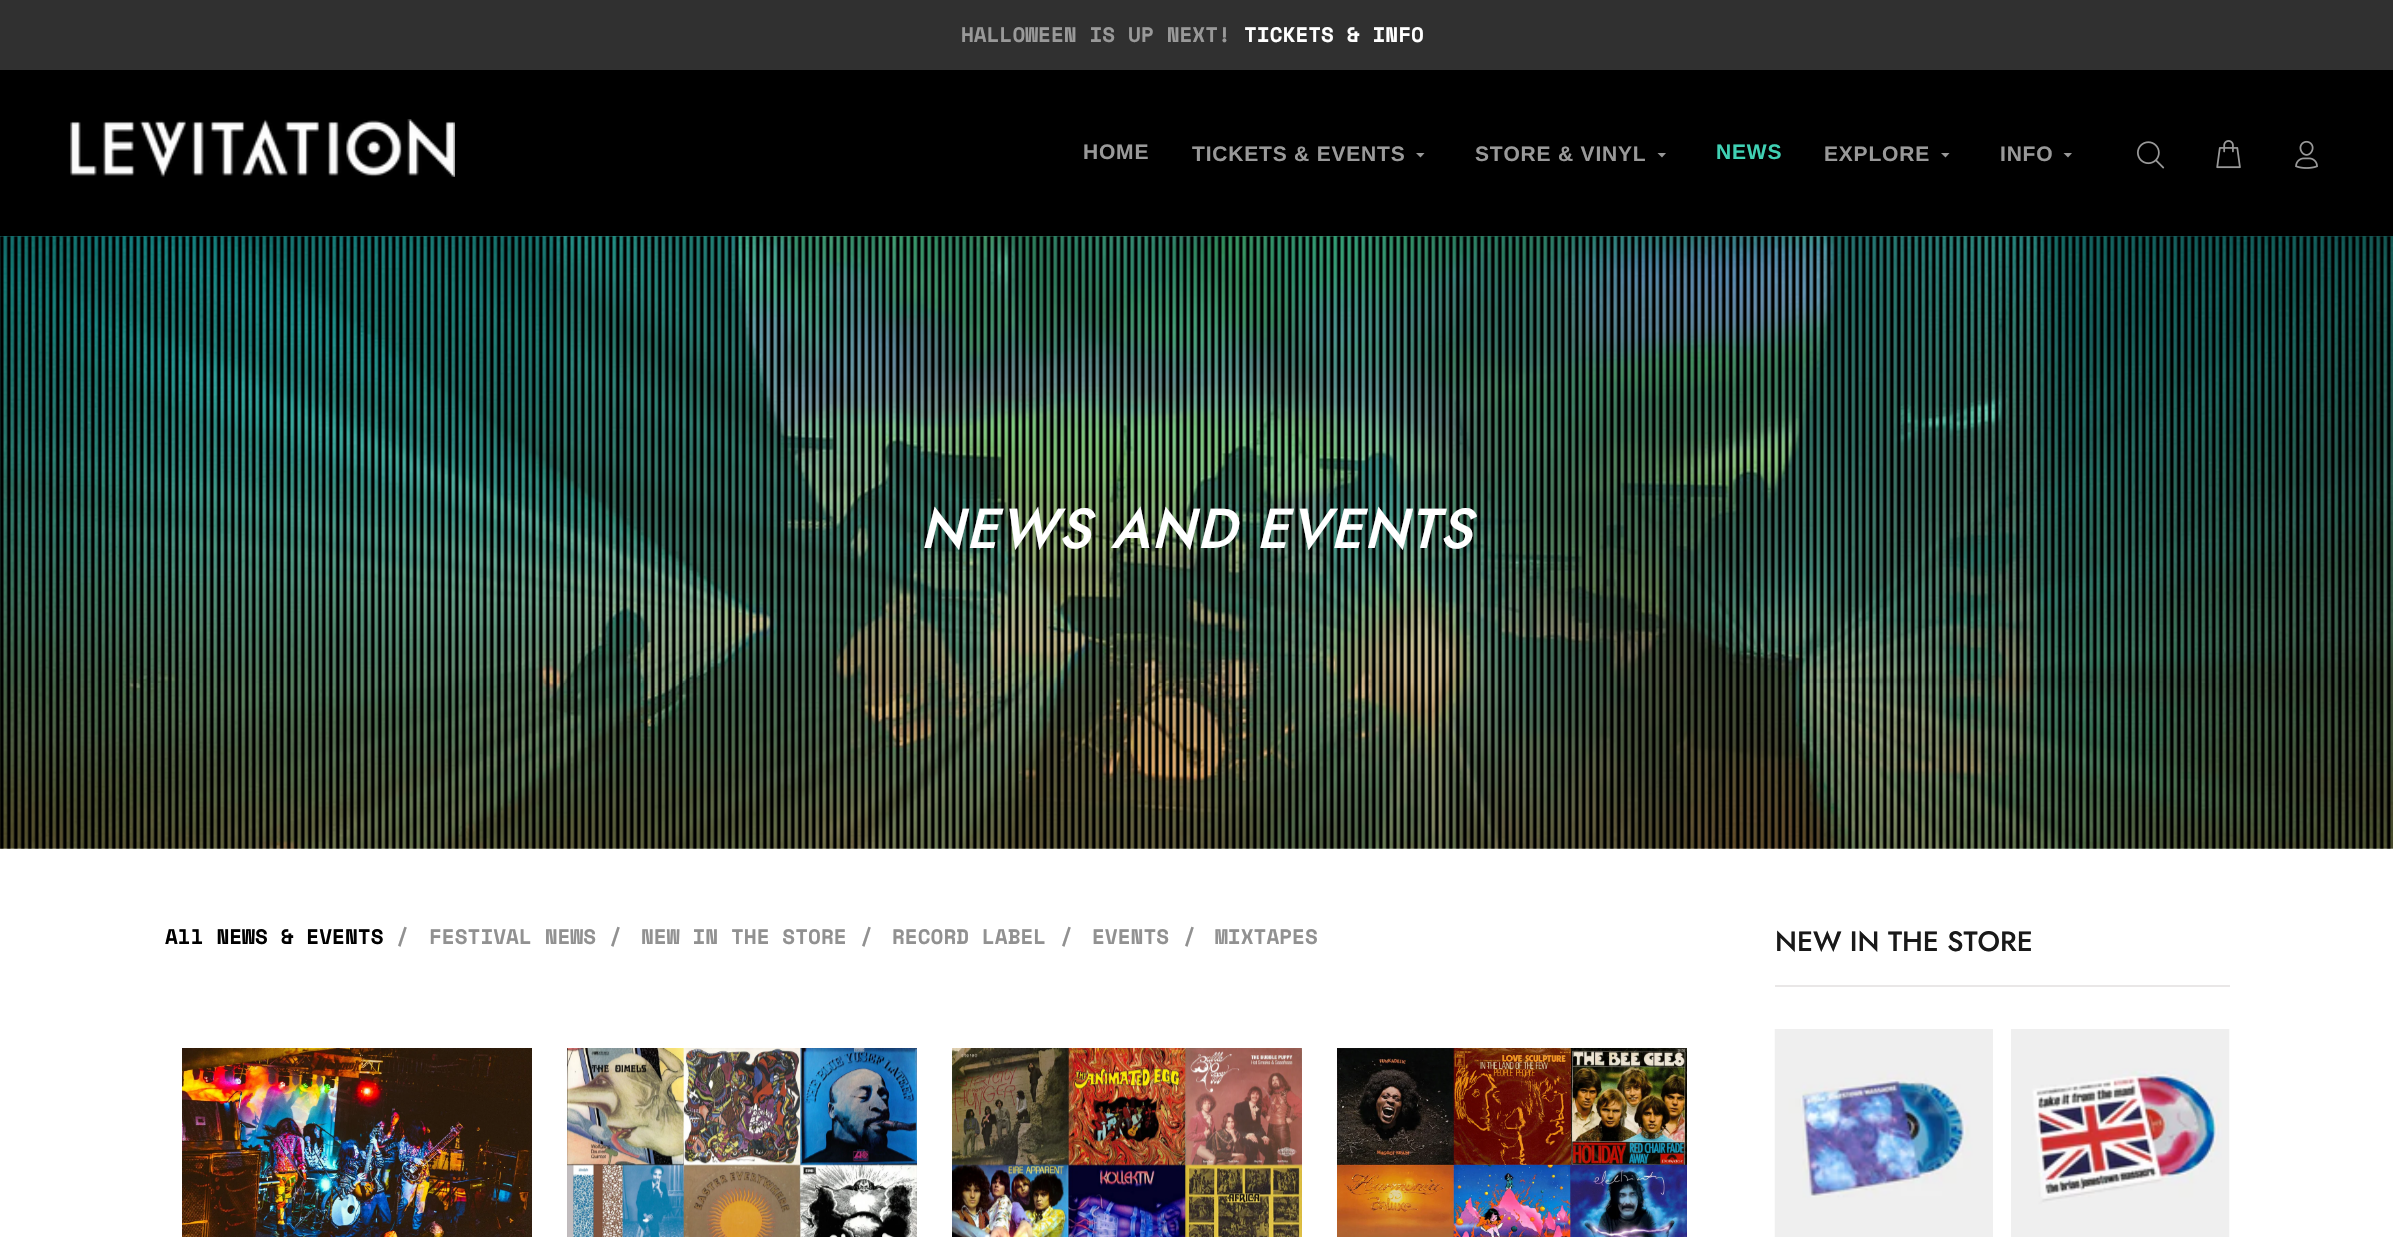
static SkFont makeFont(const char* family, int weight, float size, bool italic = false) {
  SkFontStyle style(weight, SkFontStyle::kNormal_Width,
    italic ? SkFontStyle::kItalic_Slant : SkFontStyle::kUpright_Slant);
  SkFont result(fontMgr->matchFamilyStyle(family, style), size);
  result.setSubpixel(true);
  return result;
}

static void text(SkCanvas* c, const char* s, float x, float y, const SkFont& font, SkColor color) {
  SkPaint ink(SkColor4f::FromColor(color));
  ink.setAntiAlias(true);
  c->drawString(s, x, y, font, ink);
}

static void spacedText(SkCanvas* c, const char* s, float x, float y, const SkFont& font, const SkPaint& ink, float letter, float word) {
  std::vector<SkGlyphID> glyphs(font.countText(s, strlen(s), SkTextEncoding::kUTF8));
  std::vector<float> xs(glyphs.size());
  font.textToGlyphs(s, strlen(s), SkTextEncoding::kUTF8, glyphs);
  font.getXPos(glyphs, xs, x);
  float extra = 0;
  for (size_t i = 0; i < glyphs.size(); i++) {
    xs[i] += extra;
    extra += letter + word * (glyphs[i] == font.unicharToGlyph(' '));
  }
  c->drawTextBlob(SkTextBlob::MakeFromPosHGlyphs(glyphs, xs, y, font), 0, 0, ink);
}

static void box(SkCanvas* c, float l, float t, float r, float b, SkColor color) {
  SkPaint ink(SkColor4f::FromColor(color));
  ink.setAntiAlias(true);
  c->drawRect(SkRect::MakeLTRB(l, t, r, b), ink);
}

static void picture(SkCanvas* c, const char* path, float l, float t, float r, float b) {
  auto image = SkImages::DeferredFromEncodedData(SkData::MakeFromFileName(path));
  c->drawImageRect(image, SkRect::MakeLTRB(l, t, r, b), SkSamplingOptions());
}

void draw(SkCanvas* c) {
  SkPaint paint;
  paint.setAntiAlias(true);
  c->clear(0xffffffff);
  box(c, 0, 70, 2393, 236, 0xff000000);
  box(c, 0, 0, 2393, 70, 0xff303030);
  SkFont face1 = makeFont("Space Mono", 700, 21);
  text(c, "HALLOWEEN IS UP NEXT!", 961, 42, face1, 0xff999999);
  text(c, "TICKETS & INFO", 1244, 42, face1, 0xffffffff);
  picture(c, "img_01.png", 70, 119, 455, 177);
  SkFont face2 = makeFont("Liberation Sans", 700, 21);
  paint.setColor(0xff999999);
  spacedText(c, "HOME", 1083, 159, face2, paint, 0.8f, 0);
  spacedText(c, "TICKETS & EVENTS", 1192, 161, face2, paint, 0.8f, 0);
  c->drawPath(SkPathBuilder().moveTo(1420.5f, 157.5f).lineTo(1416, 153).lineTo(1424.5f, 153).close().detach(), paint);
  spacedText(c, "STORE & VINYL", 1475, 161, face2, paint, 0.8f, 0);
  c->drawPath(SkPathBuilder().moveTo(1662, 157.5f).lineTo(1657.5f, 153).lineTo(1666, 153).close().detach(), paint);
  paint.setColor(0xff40d1b4);
  spacedText(c, "NEWS", 1716, 159, face2, paint, 0.8f, 0);
  paint.setColor(0xff999999);
  spacedText(c, "EXPLORE", 1824, 161, face2, paint, 0.8f, 0);
  c->drawPath(SkPathBuilder().moveTo(1945.5f, 157.5f).lineTo(1941, 153).lineTo(1949.5f, 153).close().detach(), paint);
  spacedText(c, "INFO", 2000, 161, face2, paint, 0.8f, 0);
  c->drawPath(SkPathBuilder().moveTo(2068, 157.5f).lineTo(2063.5f, 153).lineTo(2072, 153).close().detach(), paint);
  picture(c, "img_02.png", 2137, 141, 2165, 169);
  picture(c, "img_03.png", 2216, 140, 2241, 169);
  picture(c, "img_04.png", 2295, 140, 2318, 169);
  picture(c, "img_05.png", 0, 236, 2393, 849);
  picture(c, "img_06.png", 0, 236, 2391, 849);
  SkFont face3 = makeFont("Jost", 500, 56, true);
  paint.setColor(0xffffffff);
  spacedText(c, "NEWS AND EVENTS", 920, 548, face3, paint, 1.7f, 0);
  text(c, "All NEWS & EVENTS", 165, 944, face1, 0xff000000);
  text(c, "/", 396, 944, face1, 0xff919191);
  text(c, "FESTIVAL NEWS", 429, 944, face1, 0xff919191);
  text(c, "/", 609, 944, face1, 0xff919191);
  text(c, "NEW IN THE STORE", 641, 944, face1, 0xff919191);
  text(c, "/", 860, 944, face1, 0xff919191);
  text(c, "RECORD LABEL", 892, 944, face1, 0xff919191);
  text(c, "/", 1060, 944, face1, 0xff919191);
  text(c, "EVENTS", 1092, 944, face1, 0xff919191);
  text(c, "/", 1183, 944, face1, 0xff919191);
  text(c, "MIXTAPES", 1215, 944, face1, 0xff919191);
  box(c, 1775, 985, 2230, 987, 0xffe9e7e7);
  SkFont face4 = makeFont("Jost", 500, 28);
  text(c, "NEW IN THE STORE", 1775, 951, face4, 0xff191919);
  picture(c, "img_07.png", 1774, 1029, 1993, 1237);
  picture(c, "img_08.png", 2011, 1029, 2230, 1237);
  picture(c, "img_09.png", 182, 1048, 532, 1237);
  picture(c, "img_10.png", 567, 1048, 917, 1237);
  picture(c, "img_11.png", 952, 1048, 1302, 1237);
  picture(c, "img_12.png", 1337, 1048, 1687, 1237);
}
